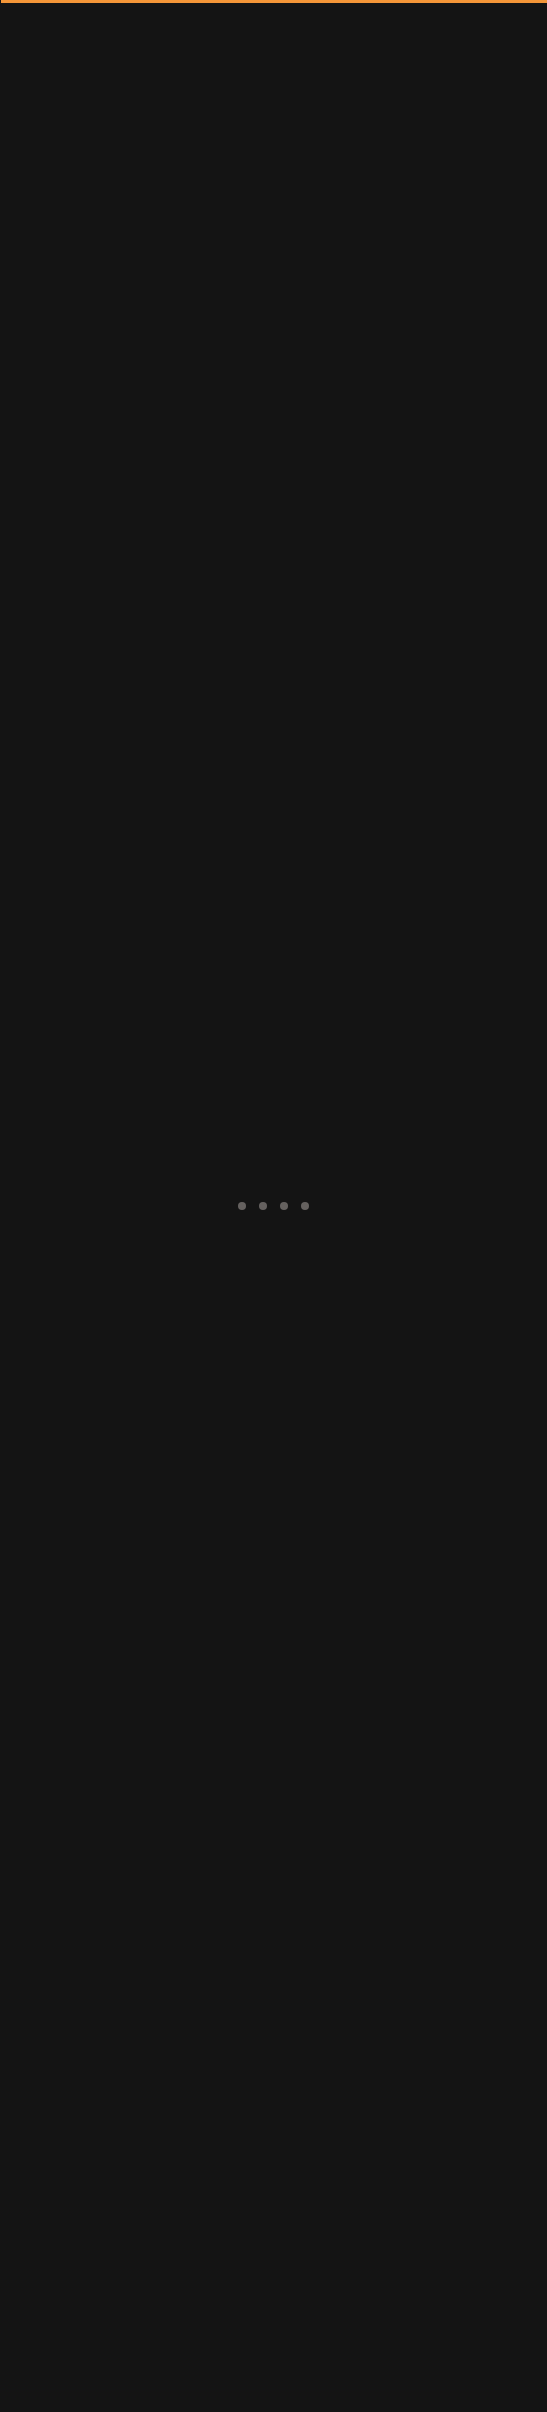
static void box(SkCanvas* c, float l, float t, float r, float b, SkColor color) {
  SkPaint ink(SkColor4f::FromColor(color));
  ink.setAntiAlias(true);
  c->drawRect(SkRect::MakeLTRB(l, t, r, b), ink);
}

void draw(SkCanvas* c) {
  SkPaint paint;
  paint.setAntiAlias(true);
  c->clear(0xff141414);
  box(c, 1, 0, 547, 3, 0xfff49638);
  paint.setColor(0xff65615f);
  c->drawCircle(242, 1206, 4, paint);
  c->drawCircle(263, 1206, 4, paint);
  c->drawCircle(284, 1206, 4, paint);
  c->drawCircle(305, 1206, 4, paint);
}
